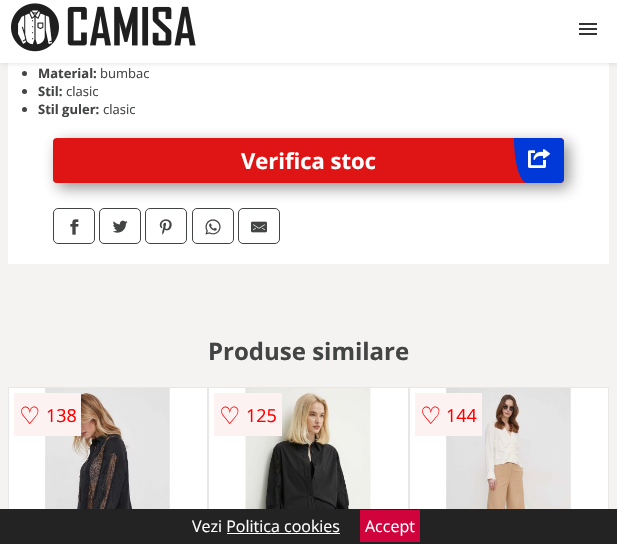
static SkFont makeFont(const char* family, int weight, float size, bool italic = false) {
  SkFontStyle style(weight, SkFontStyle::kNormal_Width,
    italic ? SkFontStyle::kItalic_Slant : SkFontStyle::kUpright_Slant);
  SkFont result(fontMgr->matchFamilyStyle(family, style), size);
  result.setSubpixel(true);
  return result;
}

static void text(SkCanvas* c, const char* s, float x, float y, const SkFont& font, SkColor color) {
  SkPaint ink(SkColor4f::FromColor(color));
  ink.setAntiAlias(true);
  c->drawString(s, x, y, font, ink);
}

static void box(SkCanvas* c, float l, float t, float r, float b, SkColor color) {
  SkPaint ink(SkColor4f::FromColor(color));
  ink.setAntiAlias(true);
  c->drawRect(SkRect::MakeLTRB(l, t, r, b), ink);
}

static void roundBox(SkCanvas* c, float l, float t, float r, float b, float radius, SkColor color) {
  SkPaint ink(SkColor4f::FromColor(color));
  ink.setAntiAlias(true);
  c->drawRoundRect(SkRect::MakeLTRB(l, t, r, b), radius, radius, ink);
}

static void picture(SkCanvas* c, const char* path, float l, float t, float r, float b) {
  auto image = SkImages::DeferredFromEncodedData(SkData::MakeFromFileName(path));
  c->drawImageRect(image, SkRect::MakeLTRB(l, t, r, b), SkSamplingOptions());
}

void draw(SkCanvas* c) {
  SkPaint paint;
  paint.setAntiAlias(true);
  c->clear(0xfff5f2f2);
  box(c, 8, 63, 609, 264, 0xffffffff);
  paint.setColor(0x1a000000);
  paint.setMaskFilter(SkMaskFilter::MakeBlur(kNormal_SkBlurStyle, 2));
  c->drawRect(SkRect::MakeLTRB(1, 1, 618, 64), paint);
  paint.setMaskFilter(nullptr);
  box(c, 0, 0, 617, 63, 0xffffffff);
  picture(c, "img_01.png", 11, 3, 196, 52);
  box(c, 579, 28, 597, 30, 0xff333333);
  box(c, 579, 23, 597, 25, 0xff333333);
  box(c, 579, 33, 597, 35, 0xff333333);
  paint.setColor(0xff434444);
  c->drawCircle(24.5f, 73.5f, 2.5f, paint);
  SkFont face1 = makeFont("Open Sans", 700, 13);
  text(c, "Material:", 38, 78, face1, 0xff434444);
  SkFont face2 = makeFont("Open Sans", 400, 13);
  text(c, "bumbac", 100, 78, face2, 0xff434444);
  c->drawCircle(24.5f, 91.5f, 2.5f, paint);
  text(c, "Stil:", 38, 96, face1, 0xff434444);
  text(c, "clasic", 66, 96, face2, 0xff434444);
  c->drawCircle(24.5f, 109.5f, 2.5f, paint);
  text(c, "Stil guler:", 38, 114, face1, 0xff434444);
  text(c, "clasic", 103, 114, face2, 0xff434444);
  paint.setColor(0x80272727);
  paint.setMaskFilter(SkMaskFilter::MakeBlur(kNormal_SkBlurStyle, 7.5f));
  c->drawRoundRect(SkRect::MakeLTRB(58, 143, 569, 188), 4, 4, paint);
  paint.setMaskFilter(nullptr);
  roundBox(c, 53, 138, 564, 183, 4, 0xffdf1515);
  SkFont face3 = makeFont("Open Sans", 700, 22);
  text(c, "Verifica stoc", 241, 169, face3, 0xffffffff);
  paint.setColor(0xff0039d7);
  c->drawPath(SkPathBuilder().moveTo(514, 138).lineTo(560, 138).cubicTo(562, 138, 564, 140, 564, 142).lineTo(564, 179).cubicTo(564, 181, 562, 183, 560, 183).lineTo(527, 183).cubicTo(520, 183, 514, 163, 514, 138).close().detach(), paint);
  picture(c, "img_02.png", 528, 149, 550, 168);
  paint.setStyle(SkPaint::kStroke_Style);
  paint.setStrokeWidth(1);
  paint.setColor(0xff434444);
  c->drawRoundRect(SkRect::MakeLTRB(53.5f, 208.5f, 94.5f, 243.5f), 4.5f, 4.5f, paint);
  picture(c, "img_03.png", 70, 219, 79, 235);
  c->drawRoundRect(SkRect::MakeLTRB(99.5f, 208.5f, 140.5f, 243.5f), 4.5f, 4.5f, paint);
  picture(c, "img_04.png", 112, 220, 128, 233);
  c->drawRoundRect(SkRect::MakeLTRB(145.5f, 208.5f, 186.5f, 243.5f), 4.5f, 4.5f, paint);
  picture(c, "img_05.png", 159, 219, 172, 235);
  c->drawRoundRect(SkRect::MakeLTRB(192.5f, 208.5f, 233.5f, 243.5f), 4.5f, 4.5f, paint);
  picture(c, "img_06.png", 205, 219, 221, 235);
  c->drawRoundRect(SkRect::MakeLTRB(238.5f, 208.5f, 279.5f, 243.5f), 4.5f, 4.5f, paint);
  picture(c, "img_07.png", 251, 221, 267, 233);
  SkFont face4 = makeFont("Open Sans", 700, 24);
  text(c, "Produse similare", 208, 360, face4, 0xff434444);
  box(c, 9, 388, 207, 509, 0xffffffff);
  paint.setColor(0xffe8e7e7);
  c->drawRect(SkRect::MakeLTRB(8.5f, 387.5f, 207.5f, 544.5f), paint);
  picture(c, "img_08.png", 45, 388, 170, 509);
  box(c, 14, 393, 81, 436, 0xfffdf2f2);
  SkFont face5 = makeFont("DejaVu Sans", 400, 24);
  text(c, "♡", 19, 424, face5, 0xffff0000);
  SkFont face6 = makeFont("Open Sans", 400, 18);
  text(c, "138", 46, 422, face6, 0xffff0000);
  box(c, 209, 388, 408, 509, 0xffffffff);
  c->drawRect(SkRect::MakeLTRB(208.5f, 387.5f, 408.5f, 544.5f), paint);
  picture(c, "img_09.png", 244, 388, 371, 509);
  box(c, 214, 393, 282, 436, 0xfffdf2f2);
  text(c, "♡", 219, 424, face5, 0xffff0000);
  text(c, "125", 246, 422, face6, 0xffff0000);
  box(c, 410, 388, 608, 509, 0xffffffff);
  c->drawRect(SkRect::MakeLTRB(409.5f, 387.5f, 608.5f, 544.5f), paint);
  picture(c, "img_10.png", 446, 388, 571, 509);
  box(c, 415, 393, 482, 436, 0xfffdf2f2);
  text(c, "♡", 420, 424, face5, 0xffff0000);
  text(c, "144", 446, 422, face6, 0xffff0000);
  box(c, 0, 509, 617, 544, 0xff232323);
  SkFont face7 = makeFont("Open Sans", 400, 16);
  text(c, "Vezi Politica cookies", 192, 532, face7, 0xffffffff);
  box(c, 227, 533, 340, 534, 0xffffffff);
  box(c, 360, 510, 420, 542, 0xffd0033c);
  text(c, "Accept", 365, 532, face7, 0xffffffff);
}
